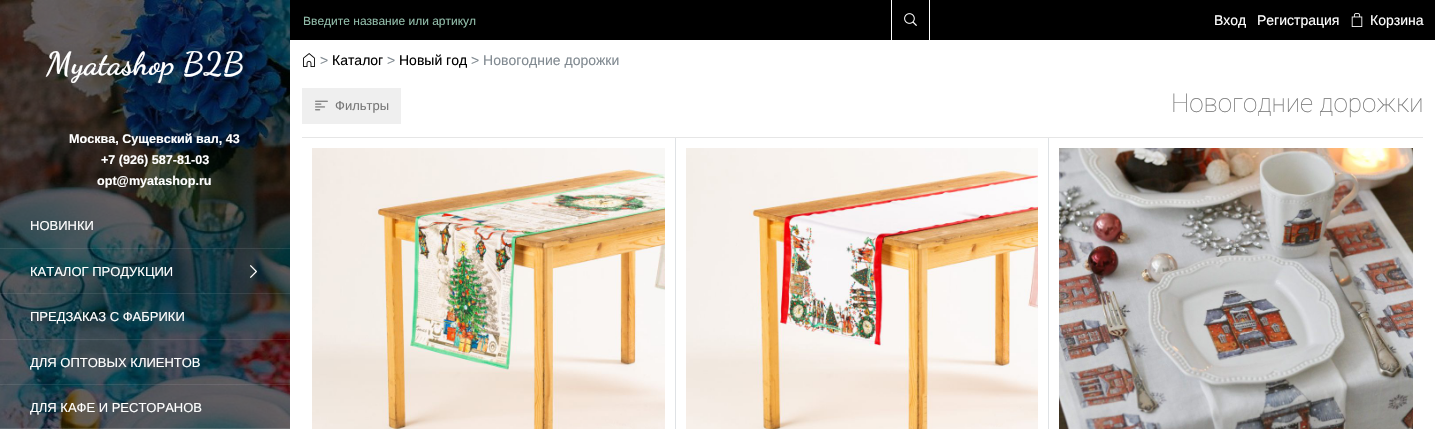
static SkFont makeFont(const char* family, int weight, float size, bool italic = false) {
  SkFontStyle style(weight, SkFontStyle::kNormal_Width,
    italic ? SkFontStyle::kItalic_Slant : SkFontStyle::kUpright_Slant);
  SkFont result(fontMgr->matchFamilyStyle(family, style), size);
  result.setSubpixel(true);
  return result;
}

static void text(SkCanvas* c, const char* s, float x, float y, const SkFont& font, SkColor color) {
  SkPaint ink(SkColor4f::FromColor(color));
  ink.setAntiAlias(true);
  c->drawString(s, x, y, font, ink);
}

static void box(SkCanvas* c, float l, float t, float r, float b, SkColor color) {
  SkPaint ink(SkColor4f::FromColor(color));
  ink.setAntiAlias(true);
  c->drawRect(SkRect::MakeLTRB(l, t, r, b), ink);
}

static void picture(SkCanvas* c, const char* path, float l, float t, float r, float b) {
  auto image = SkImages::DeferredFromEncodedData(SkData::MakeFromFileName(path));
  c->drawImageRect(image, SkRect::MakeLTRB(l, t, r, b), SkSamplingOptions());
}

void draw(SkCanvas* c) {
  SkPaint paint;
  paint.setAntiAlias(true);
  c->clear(0xffffffff);
  box(c, 290, 0, 1435, 40, 0xff000000);
  SkFont face1 = makeFont("Liberation Sans", 400, 12);
  text(c, "Введите название или артикул", 303, 25, face1, 0xff92bdaa);
  box(c, 929, 0, 930, 40, 0xffffffff);
  box(c, 891, 0, 892, 40, 0xffffffff);
  picture(c, "img_01.png", 904, 13, 917, 26);
  SkFont face2 = makeFont("Liberation Sans", 400, 14);
  text(c, "Вход", 1214, 25, face2, 0xffffffff);
  text(c, "Регистрация", 1257, 25, face2, 0xffffffff);
  picture(c, "img_02.png", 1351, 13, 1363, 27);
  text(c, "Корзина", 1370, 25, face2, 0xffffffff);
  picture(c, "img_03.png", 0, 0, 290, 429);
  SkFont face3 = makeFont("Dancing Script", 700, 32);
  text(c, "Myatashop B2B", 46, 74, face3, 0xffffffff);
  SkFont face4 = makeFont("Liberation Sans", 700, 12.6f);
  text(c, "Москва, Сущевский вал, 43", 69, 143, face4, 0xffffffff);
  text(c, "+7 (926) 587-81-03", 101, 164, face4, 0xffffffff);
  text(c, "opt@myatashop.ru", 97, 185, face4, 0xffffffff);
  SkFont face5 = makeFont("Liberation Sans", 400, 13);
  text(c, "НОВИНКИ", 30, 230, face5, 0xffffffff);
  box(c, 0, 248, 290, 249, 0x1adedede);
  text(c, "КАТАЛОГ ПРОДУКЦИИ", 30, 276, face5, 0xffffffff);
  picture(c, "img_04.png", 250, 265, 257, 278);
  box(c, 0, 293, 290, 294, 0x1adedede);
  text(c, "ПРЕДЗАКАЗ С ФАБРИКИ", 30, 321, face5, 0xffffffff);
  box(c, 0, 339, 290, 340, 0x1adedede);
  text(c, "ДЛЯ ОПТОВЫХ КЛИЕНТОВ", 30, 367, face5, 0xffffffff);
  box(c, 0, 384, 290, 385, 0x1adedede);
  text(c, "ДЛЯ КАФЕ И РЕСТОРАНОВ", 30, 412, face5, 0xffffffff);
  picture(c, "img_05.png", 303, 53, 315, 67);
  text(c, ">", 320, 65, face2, 0xff818a91);
  text(c, "Каталог", 332, 65, face2, 0xff000000);
  text(c, ">", 387, 65, face2, 0xff818a91);
  c->save();
  c->clipRect(SkRect::MakeLTRB(383, 50, 467, 69));
  text(c, "Новый год", 399, 65, face2, 0xff000000);
  c->restore();
  text(c, "> Новогодние дорожки", 471, 65, face2, 0xff818a91);
  box(c, 302, 88, 401, 124, 0xffefefef);
  picture(c, "img_06.png", 315, 100, 328, 111);
  text(c, "Фильтры", 335, 110, face5, 0xff777777);
  SkFont face6 = makeFont("Roboto", 100, 26);
  text(c, "Новогодние дорожки", 1171, 112, face6, 0xff777777);
  box(c, 302, 137, 1423, 138, 0xffe6e6e6);
  paint.setColor(0xffdfe2e5);
  c->drawPath(SkPathBuilder().moveTo(676, 138).lineTo(676, 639).lineTo(675, 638).lineTo(675, 138).close().detach(), paint);
  picture(c, "img_07.png", 312, 148, 665, 429);
  c->drawPath(SkPathBuilder().moveTo(1049, 138).lineTo(1049, 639).lineTo(1048, 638).lineTo(1048, 138).close().detach(), paint);
  picture(c, "img_08.png", 686, 148, 1038, 429);
  picture(c, "img_09.png", 1059, 148, 1413, 429);
}
